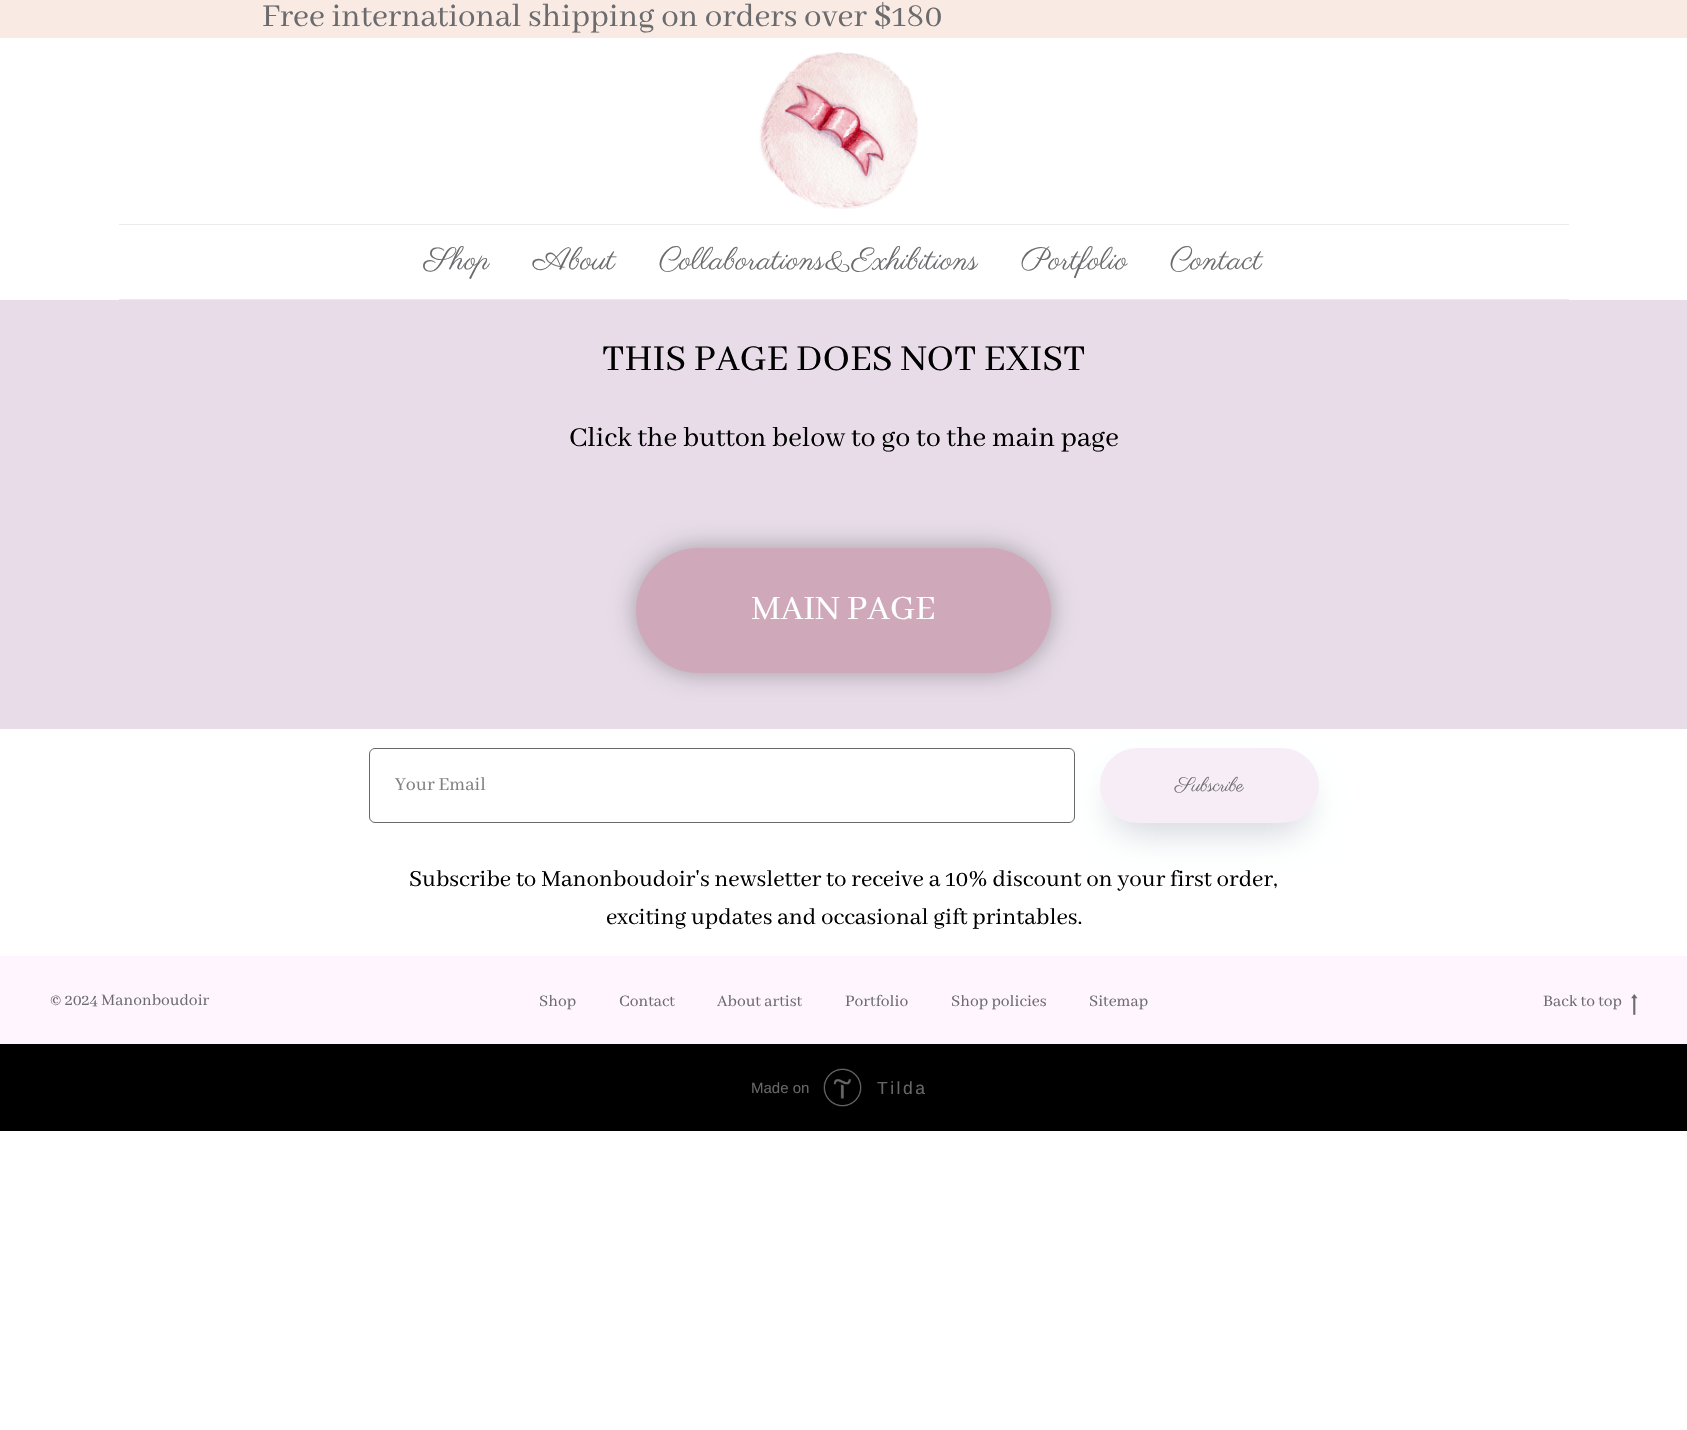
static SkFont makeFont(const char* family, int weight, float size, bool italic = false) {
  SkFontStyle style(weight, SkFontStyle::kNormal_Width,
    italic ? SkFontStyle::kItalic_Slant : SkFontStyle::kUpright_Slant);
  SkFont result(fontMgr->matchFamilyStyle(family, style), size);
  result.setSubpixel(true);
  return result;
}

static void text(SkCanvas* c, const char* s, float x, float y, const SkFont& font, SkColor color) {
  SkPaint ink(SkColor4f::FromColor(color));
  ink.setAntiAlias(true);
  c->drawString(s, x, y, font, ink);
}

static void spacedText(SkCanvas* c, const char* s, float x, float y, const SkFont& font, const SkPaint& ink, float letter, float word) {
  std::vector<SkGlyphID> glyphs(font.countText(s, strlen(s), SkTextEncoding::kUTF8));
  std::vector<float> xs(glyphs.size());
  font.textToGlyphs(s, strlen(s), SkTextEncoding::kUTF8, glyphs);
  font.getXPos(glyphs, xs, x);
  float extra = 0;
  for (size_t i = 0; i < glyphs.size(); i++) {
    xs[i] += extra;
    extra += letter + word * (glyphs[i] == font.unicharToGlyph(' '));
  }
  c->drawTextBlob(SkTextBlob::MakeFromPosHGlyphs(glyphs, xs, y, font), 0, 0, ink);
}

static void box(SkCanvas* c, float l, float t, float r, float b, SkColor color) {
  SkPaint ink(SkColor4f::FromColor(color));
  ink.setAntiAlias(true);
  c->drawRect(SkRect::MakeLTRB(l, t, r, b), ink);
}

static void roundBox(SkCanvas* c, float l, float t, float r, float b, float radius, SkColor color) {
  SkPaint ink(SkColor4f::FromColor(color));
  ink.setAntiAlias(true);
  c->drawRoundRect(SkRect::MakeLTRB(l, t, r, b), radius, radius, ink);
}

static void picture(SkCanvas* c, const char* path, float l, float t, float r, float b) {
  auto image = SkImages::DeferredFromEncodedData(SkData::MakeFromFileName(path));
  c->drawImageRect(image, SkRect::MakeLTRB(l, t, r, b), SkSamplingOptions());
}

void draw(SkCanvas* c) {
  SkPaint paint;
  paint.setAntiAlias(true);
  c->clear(0xffffffff);
  box(c, 0, 0, 1687, 38, 0xfff9ebe4);
  SkFont face1 = makeFont("Abhaya Libre", 400, 35);
  text(c, "Free international shipping on orders over $180", 262, 26, face1, 0xff6b6b6e);
  picture(c, "img_01.png", 759, 51, 919, 209);
  box(c, 119, 224, 1569, 225, 0xffeaeaea);
  SkFont face2 = makeFont("Parisienne", 400, 31.25f);
  paint.setColor(0xff6b6b6e);
  spacedText(c, "Shop", 424, 269, face2, paint, 0.6f, 0);
  spacedText(c, "About", 533, 269, face2, paint, 0.6f, 0);
  spacedText(c, "Collaborations&Exhibitions", 659, 269, face2, paint, 0.6f, 0);
  spacedText(c, "Portfolio", 1021, 269, face2, paint, 0.6f, 0);
  spacedText(c, "Contact", 1170, 269, face2, paint, 0.6f, 0);
  box(c, 119, 299, 1569, 300, 0xffeaeaea);
  box(c, 0, 300, 1687, 729, 0xffe7dce8);
  SkFont face3 = makeFont("Abhaya Libre", 400, 40);
  text(c, "THIS PAGE DOES NOT EXIST", 602, 370, face3, 0xff000000);
  SkFont face4 = makeFont("Abhaya Libre", 400, 30);
  text(c, "Click the button below to go to the main page", 569, 446, face4, 0xff000000);
  paint.setColor(0x4d000000);
  paint.setMaskFilter(SkMaskFilter::MakeBlur(kNormal_SkBlurStyle, 12.5f));
  c->drawRoundRect(SkRect::MakeLTRB(636, 548, 1051, 673), 62.5f, 62.5f, paint);
  paint.setMaskFilter(nullptr);
  roundBox(c, 636, 548, 1051, 673, 62.5f, 0xffcfa8b9);
  SkFont face5 = makeFont("Abhaya Libre", 400, 37.5f);
  text(c, "MAIN PAGE", 751, 619, face5, 0xffffffff);
  paint.setStyle(SkPaint::kStroke_Style);
  paint.setStrokeWidth(1);
  paint.setColor(0xff68686b);
  c->drawRoundRect(SkRect::MakeLTRB(369.5f, 748.5f, 1074.5f, 822.5f), 5.5f, 5.5f, paint);
  SkFont face6 = makeFont("Abhaya Libre", 400, 20);
  text(c, "Your Email", 395, 790, face6, 0xff808080);
  paint.setStyle(SkPaint::kFill_Style);
  paint.setColor(0x33000b30);
  paint.setMaskFilter(SkMaskFilter::MakeBlur(kNormal_SkBlurStyle, 19));
  c->drawRoundRect(SkRect::MakeLTRB(1113, 779, 1306, 829), 25, 25, paint);
  paint.setMaskFilter(nullptr);
  roundBox(c, 1100, 748, 1319, 823, 37.5f, 0xfff7edf6);
  SkFont face7 = makeFont("Parisienne", 400, 20);
  text(c, "Subscribe", 1175, 791, face7, 0xff6b6b6e);
  SkFont face8 = makeFont("Abhaya Libre", 400, 25);
  text(c, "Subscribe to Manonboudoir's newsletter to receive a 10% discount on your first order,", 409, 886, face8, 0xff000000);
  text(c, "exciting updates and occasional gift printables.", 606, 924, face8, 0xff000000);
  box(c, 0, 956, 1687, 1044, 0xfffff5fe);
  SkFont face9 = makeFont("Abhaya Libre", 400, 17.5f);
  text(c, "© 2024 Manonboudoir", 50, 1005, face9, 0xff6b6b6e);
  text(c, "Shop", 539, 1006, face9, 0xff6b6b6e);
  text(c, "Contact", 619, 1006, face9, 0xff6b6b6e);
  text(c, "About artist", 717, 1006, face9, 0xff6b6b6e);
  text(c, "Portfolio", 845, 1006, face9, 0xff6b6b6e);
  text(c, "Shop policies", 951, 1006, face9, 0xff6b6b6e);
  text(c, "Sitemap", 1089, 1006, face9, 0xff6b6b6e);
  text(c, "Back to top", 1543, 1006, face9, 0xff6b6b6e);
  picture(c, "img_02.png", 1631, 994, 1638, 1015);
  box(c, 0, 1044, 1687, 1131, 0xff000000);
  SkFont face10 = makeFont("Liberation Sans", 400, 15);
  text(c, "Made on", 751, 1093, face10, 0xff666666);
  picture(c, "img_03.png", 823, 1068, 862, 1107);
  SkFont face11 = makeFont("Liberation Sans", 400, 17.5f);
  paint.setColor(0xff666666);
  spacedText(c, "Tilda", 877, 1094, face11, paint, 2.5f, 0);
}
